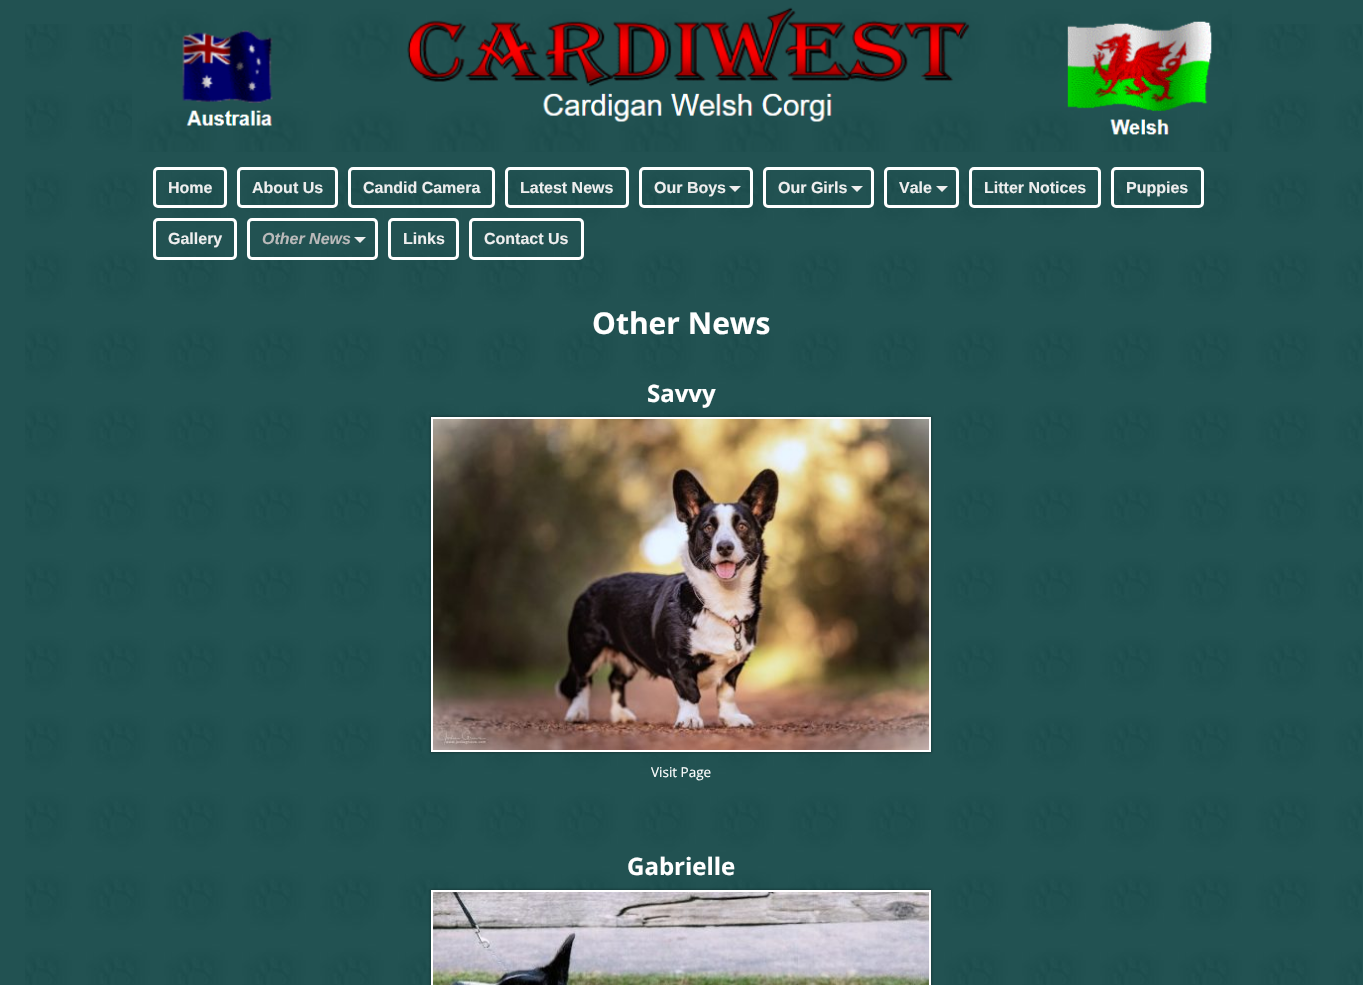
static SkFont makeFont(const char* family, int weight, float size, bool italic = false) {
  SkFontStyle style(weight, SkFontStyle::kNormal_Width,
    italic ? SkFontStyle::kItalic_Slant : SkFontStyle::kUpright_Slant);
  SkFont result(fontMgr->matchFamilyStyle(family, style), size);
  result.setSubpixel(true);
  return result;
}

static void text(SkCanvas* c, const char* s, float x, float y, const SkFont& font, SkColor color) {
  SkPaint ink(SkColor4f::FromColor(color));
  ink.setAntiAlias(true);
  c->drawString(s, x, y, font, ink);
}

static void box(SkCanvas* c, float l, float t, float r, float b, SkColor color) {
  SkPaint ink(SkColor4f::FromColor(color));
  ink.setAntiAlias(true);
  c->drawRect(SkRect::MakeLTRB(l, t, r, b), ink);
}

static void picture(SkCanvas* c, const char* path, float l, float t, float r, float b) {
  auto image = SkImages::DeferredFromEncodedData(SkData::MakeFromFileName(path));
  c->drawImageRect(image, SkRect::MakeLTRB(l, t, r, b), SkSamplingOptions());
}

void draw(SkCanvas* c) {
  SkPaint paint;
  paint.setAntiAlias(true);
  c->clear(0xff225252);
  picture(c, "img_01.png", 25, 24, 1362, 985);
  picture(c, "img_02.png", 132, 7, 1232, 152);
  paint.setStyle(SkPaint::kStroke_Style);
  paint.setStrokeWidth(3);
  paint.setColor(0xffffffff);
  c->drawRoundRect(SkRect::MakeLTRB(154.5f, 168.5f, 225.5f, 206.5f), 3.5f, 3.5f, paint);
  SkFont face1 = makeFont("Liberation Sans", 700, 16);
  text(c, "Home", 168, 193, face1, 0xffeeeeee);
  c->drawRoundRect(SkRect::MakeLTRB(238.5f, 168.5f, 336.5f, 206.5f), 3.5f, 3.5f, paint);
  text(c, "About Us", 252, 193, face1, 0xffeeeeee);
  c->drawRoundRect(SkRect::MakeLTRB(349.5f, 168.5f, 493.5f, 206.5f), 3.5f, 3.5f, paint);
  text(c, "Candid Camera", 363, 193, face1, 0xffeeeeee);
  c->drawRoundRect(SkRect::MakeLTRB(506.5f, 168.5f, 627.5f, 206.5f), 3.5f, 3.5f, paint);
  text(c, "Latest News", 520, 193, face1, 0xffeeeeee);
  c->drawRoundRect(SkRect::MakeLTRB(640.5f, 168.5f, 751.5f, 206.5f), 3.5f, 3.5f, paint);
  text(c, "Our Boys", 654, 193, face1, 0xffeeeeee);
  paint.setStyle(SkPaint::kFill_Style);
  paint.setColor(0xffeeeeee);
  c->drawPath(SkPathBuilder().moveTo(729, 186).lineTo(741, 186).lineTo(735, 192).close().detach(), paint);
  paint.setStyle(SkPaint::kStroke_Style);
  paint.setColor(0xffffffff);
  c->drawRoundRect(SkRect::MakeLTRB(764.5f, 168.5f, 872.5f, 206.5f), 3.5f, 3.5f, paint);
  text(c, "Our Girls", 778, 193, face1, 0xffeeeeee);
  paint.setStyle(SkPaint::kFill_Style);
  paint.setColor(0xffeeeeee);
  c->drawPath(SkPathBuilder().moveTo(851, 186).lineTo(863, 186).lineTo(857, 192).close().detach(), paint);
  paint.setStyle(SkPaint::kStroke_Style);
  paint.setColor(0xffffffff);
  c->drawRoundRect(SkRect::MakeLTRB(885.5f, 168.5f, 957.5f, 206.5f), 3.5f, 3.5f, paint);
  text(c, "Vale", 899, 193, face1, 0xffeeeeee);
  paint.setStyle(SkPaint::kFill_Style);
  paint.setColor(0xffeeeeee);
  c->drawPath(SkPathBuilder().moveTo(936, 186).lineTo(948, 186).lineTo(942, 192).close().detach(), paint);
  paint.setStyle(SkPaint::kStroke_Style);
  paint.setColor(0xffffffff);
  c->drawRoundRect(SkRect::MakeLTRB(970.5f, 168.5f, 1099.5f, 206.5f), 3.5f, 3.5f, paint);
  text(c, "Litter Notices", 984, 193, face1, 0xffeeeeee);
  c->drawRoundRect(SkRect::MakeLTRB(1112.5f, 168.5f, 1202.5f, 206.5f), 3.5f, 3.5f, paint);
  text(c, "Puppies", 1126, 193, face1, 0xffeeeeee);
  c->drawRoundRect(SkRect::MakeLTRB(154.5f, 219.5f, 235.5f, 258.5f), 3.5f, 3.5f, paint);
  text(c, "Gallery", 168, 244, face1, 0xffeeeeee);
  c->drawRoundRect(SkRect::MakeLTRB(248.5f, 219.5f, 376.5f, 258.5f), 3.5f, 3.5f, paint);
  SkFont face2 = makeFont("Liberation Sans", 700, 16, true);
  text(c, "Other News", 262, 244, face2, 0xffbababa);
  paint.setStyle(SkPaint::kFill_Style);
  paint.setColor(0xffeeeeee);
  c->drawPath(SkPathBuilder().moveTo(354, 237).lineTo(366, 237).lineTo(360, 243).close().detach(), paint);
  paint.setStyle(SkPaint::kStroke_Style);
  paint.setColor(0xffffffff);
  c->drawRoundRect(SkRect::MakeLTRB(389.5f, 219.5f, 457.5f, 258.5f), 3.5f, 3.5f, paint);
  text(c, "Links", 403, 244, face1, 0xffeeeeee);
  c->drawRoundRect(SkRect::MakeLTRB(470.5f, 219.5f, 582.5f, 258.5f), 3.5f, 3.5f, paint);
  text(c, "Contact Us", 484, 244, face1, 0xffeeeeee);
  SkFont face3 = makeFont("Open Sans", 700, 30);
  text(c, "Other News", 592, 334, face3, 0xffffffff);
  SkFont face4 = makeFont("Open Sans", 700, 24);
  text(c, "Savvy", 647, 402, face4, 0xffffffff);
  paint.setStyle(SkPaint::kFill_Style);
  paint.setColor(0x40000000);
  paint.setMaskFilter(SkMaskFilter::MakeBlur(kNormal_SkBlurStyle, 1));
  c->drawRect(SkRect::MakeLTRB(430, 416, 932, 753), paint);
  paint.setMaskFilter(nullptr);
  box(c, 431, 417, 931, 752, 0xffffffff);
  picture(c, "img_03.png", 433, 419, 929, 750);
  SkFont face5 = makeFont("Open Sans", 400, 13.5f);
  text(c, "Visit Page", 651, 777, face5, 0xffffffff);
  text(c, "Gabrielle", 627, 875, face4, 0xffffffff);
  paint.setMaskFilter(SkMaskFilter::MakeBlur(kNormal_SkBlurStyle, 1));
  c->drawRect(SkRect::MakeLTRB(430, 889, 932, 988), paint);
  paint.setMaskFilter(nullptr);
  box(c, 431, 890, 931, 985, 0xffffffff);
  picture(c, "img_04.png", 433, 892, 929, 985);
}
